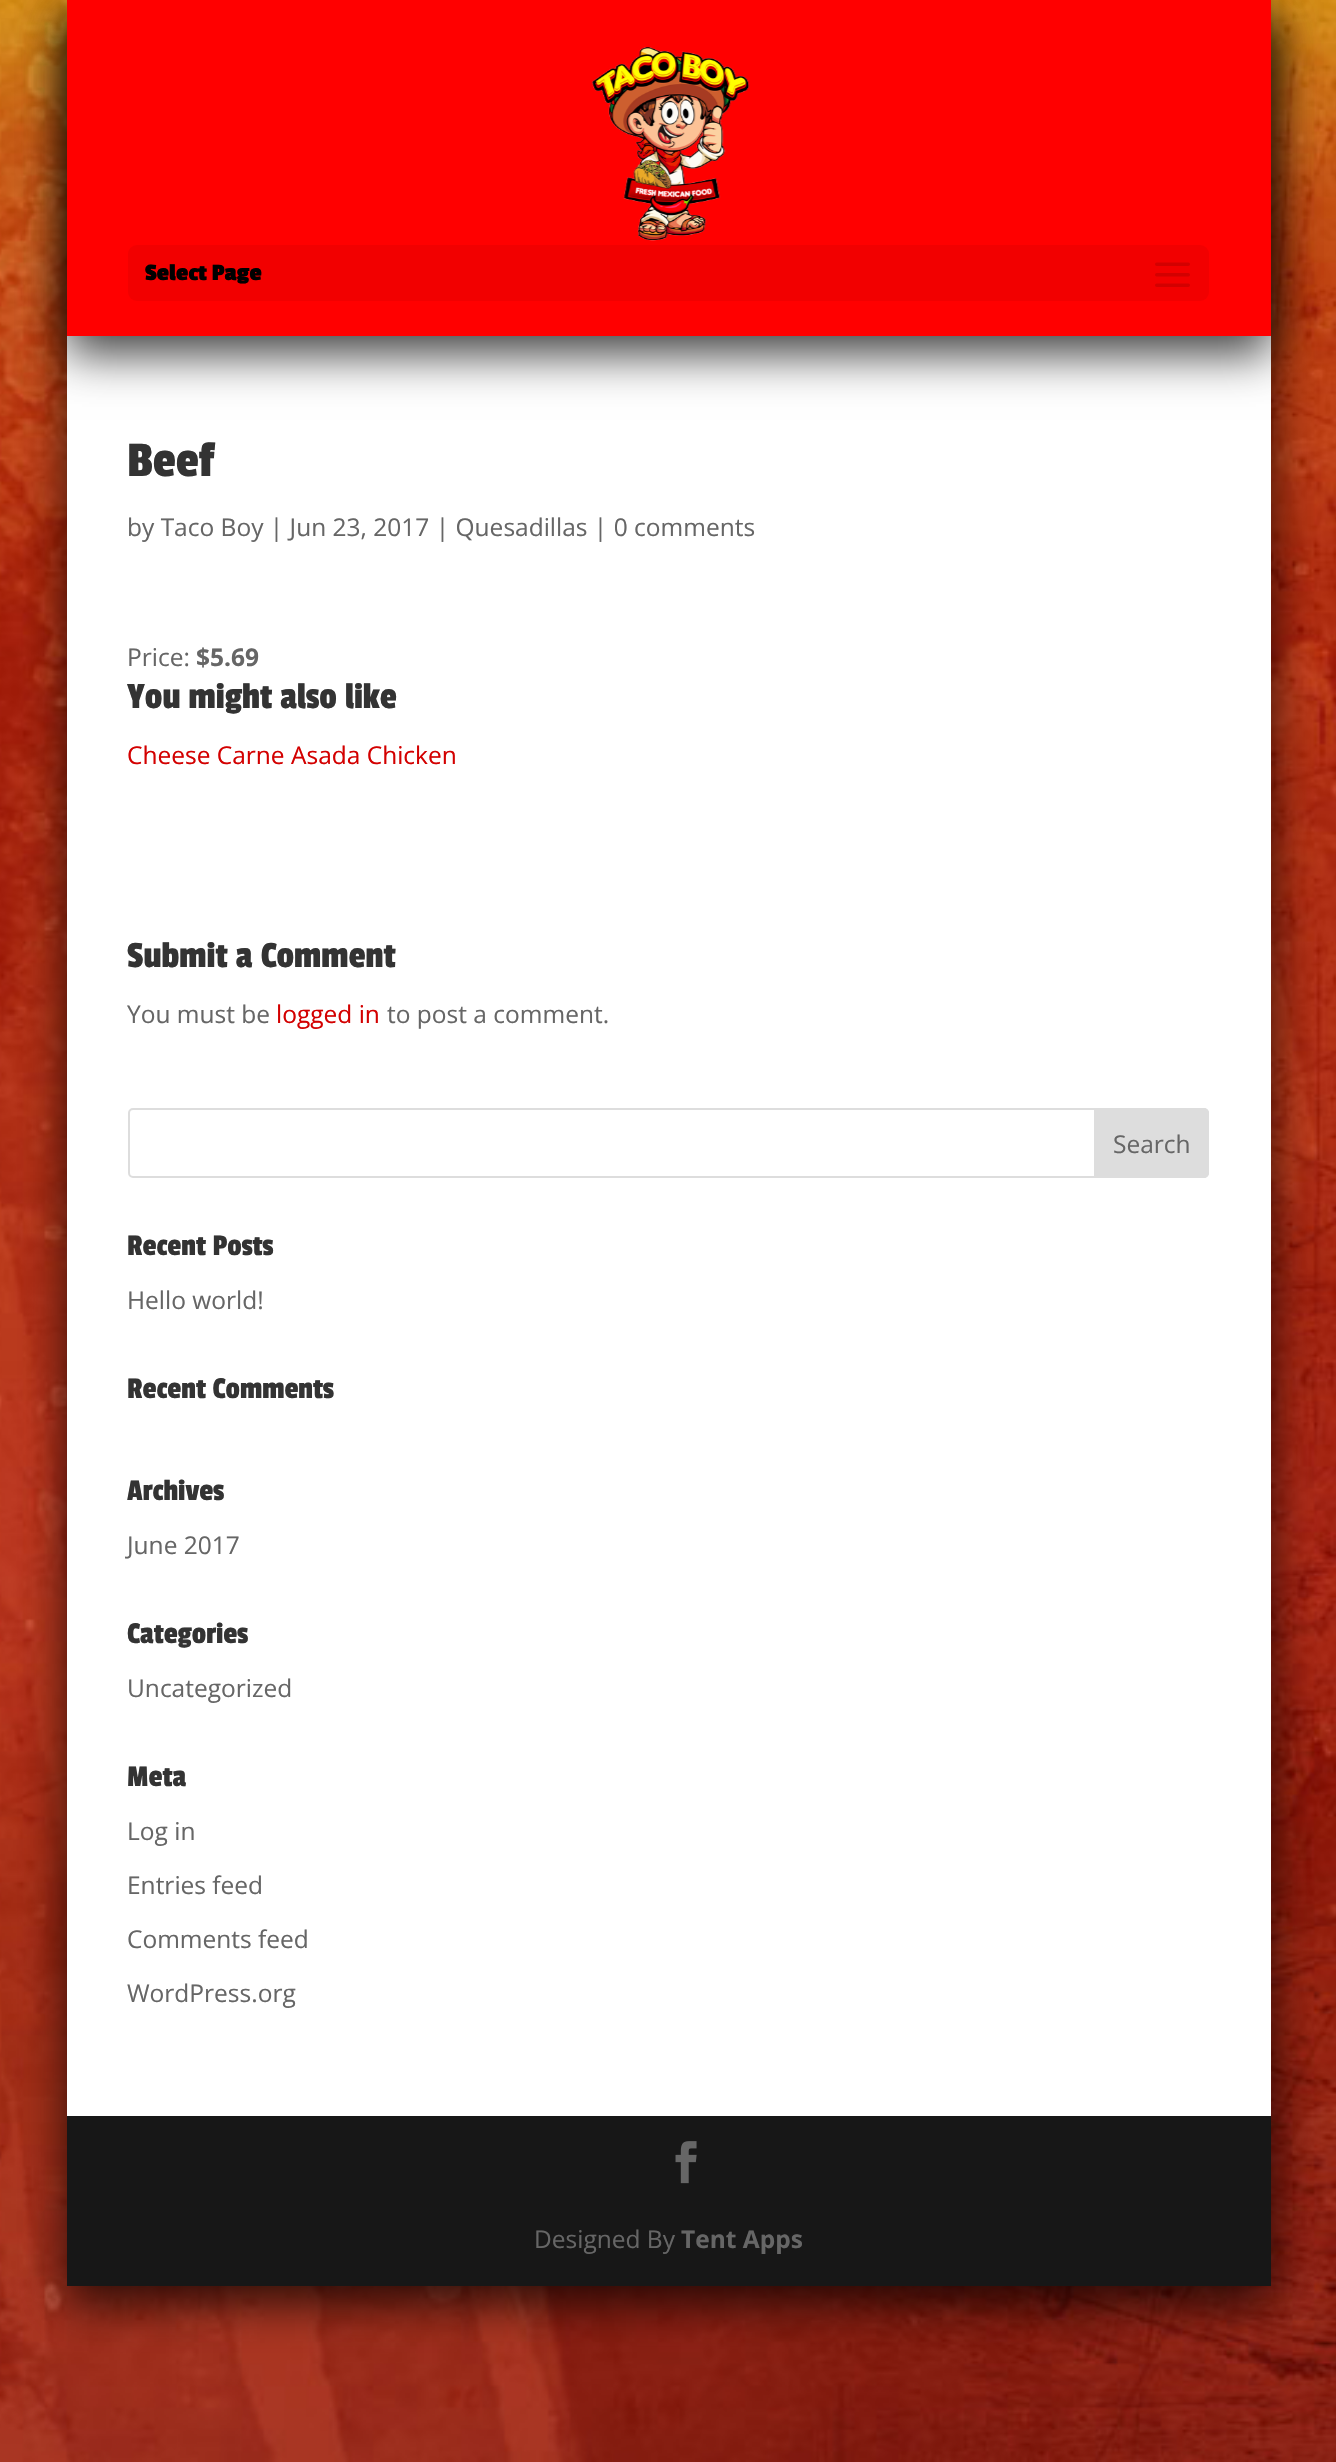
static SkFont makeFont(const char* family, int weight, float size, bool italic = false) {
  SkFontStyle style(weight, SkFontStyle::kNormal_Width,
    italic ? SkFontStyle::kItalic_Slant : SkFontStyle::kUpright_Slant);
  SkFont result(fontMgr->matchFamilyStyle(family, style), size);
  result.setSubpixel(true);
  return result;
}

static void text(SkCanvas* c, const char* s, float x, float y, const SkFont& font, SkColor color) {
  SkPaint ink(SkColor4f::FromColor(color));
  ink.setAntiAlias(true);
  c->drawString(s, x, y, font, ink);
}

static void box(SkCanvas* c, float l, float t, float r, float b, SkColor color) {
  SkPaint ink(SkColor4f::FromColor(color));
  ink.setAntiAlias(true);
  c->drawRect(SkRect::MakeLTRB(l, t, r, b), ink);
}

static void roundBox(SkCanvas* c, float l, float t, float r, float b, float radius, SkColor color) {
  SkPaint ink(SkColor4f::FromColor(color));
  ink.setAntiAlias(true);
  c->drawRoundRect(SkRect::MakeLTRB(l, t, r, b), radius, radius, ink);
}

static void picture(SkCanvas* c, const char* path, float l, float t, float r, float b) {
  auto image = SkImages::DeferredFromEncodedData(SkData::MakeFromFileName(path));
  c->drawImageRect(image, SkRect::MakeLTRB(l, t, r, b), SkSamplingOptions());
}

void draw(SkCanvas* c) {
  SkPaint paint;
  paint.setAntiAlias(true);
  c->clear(0xffffffff);
  picture(c, "img_01.png", 0, 0, 1336, 2462);
  paint.setColor(0xbf000000);
  paint.setMaskFilter(SkMaskFilter::MakeBlur(kNormal_SkBlurStyle, 22));
  c->drawRect(SkRect::MakeLTRB(67, 18, 1271, 2303), paint);
  paint.setMaskFilter(nullptr);
  box(c, 67, 336, 1271, 2116, 0xffffffff);
  paint.setMaskFilter(SkMaskFilter::MakeBlur(kNormal_SkBlurStyle, 22));
  c->drawRect(SkRect::MakeLTRB(67, 18, 1271, 354), paint);
  paint.setMaskFilter(nullptr);
  box(c, 67, 0, 1271, 336, 0xffff0000);
  picture(c, "img_02.png", 592, 47, 750, 241);
  roundBox(c, 128, 245, 1209, 301, 9, 0xfff20000);
  SkFont face1 = makeFont("Passion One", 700, 24.5f);
  text(c, "Select Page", 145, 280, face1, 0xff000000);
  picture(c, "img_03.png", 1155, 262, 1190, 287);
  SkFont face2 = makeFont("Passion One", 400, 52);
  text(c, "Beef", 127, 476, face2, 0xff333333);
  SkFont face3 = makeFont("Open Sans", 400, 24.5f);
  text(c, "by Taco Boy | Jun 23, 2017 | Quesadillas | 0 comments", 127, 536, face3, 0xff666666);
  text(c, "Price:", 127, 666, face3, 0xff666666);
  SkFont face4 = makeFont("Open Sans", 700, 24.5f);
  text(c, "$5.69", 196, 666, face4, 0xff666666);
  SkFont face5 = makeFont("Passion One", 400, 38.5f);
  text(c, "You might also like", 127, 708, face5, 0xff333333);
  text(c, "Cheese Carne Asada Chicken", 127, 764, face3, 0xffd30000);
  text(c, "Submit a Comment", 127, 967, face5, 0xff333333);
  text(c, "You must be", 127, 1023, face3, 0xff666666);
  text(c, "logged in", 276, 1023, face3, 0xffd30000);
  text(c, "to post a comment.", 387, 1023, face3, 0xff666666);
  paint.setStyle(SkPaint::kStroke_Style);
  paint.setStrokeWidth(2);
  paint.setColor(0xffdddddd);
  c->drawRoundRect(SkRect::MakeLTRB(129, 1109, 1208, 1177), 4, 4, paint);
  paint.setStyle(SkPaint::kFill_Style);
  c->drawPath(SkPathBuilder().moveTo(1095, 1109).lineTo(1204, 1109).cubicTo(1206, 1109, 1208, 1111, 1208, 1113).lineTo(1208, 1173).cubicTo(1208, 1175, 1206, 1177, 1204, 1177).lineTo(1095, 1177).close().detach(), paint);
  paint.setStyle(SkPaint::kStroke_Style);
  c->drawPath(SkPathBuilder().moveTo(1095, 1109).lineTo(1204, 1109).cubicTo(1206, 1109, 1208, 1111, 1208, 1113).lineTo(1208, 1173).cubicTo(1208, 1175, 1206, 1177, 1204, 1177).lineTo(1095, 1177).close().detach(), paint);
  text(c, "Search", 1113, 1153, face3, 0xff666666);
  SkFont face6 = makeFont("Passion One", 400, 31.5f);
  text(c, "Recent Posts", 127, 1255, face6, 0xff333333);
  text(c, "Hello world!", 127, 1309, face3, 0xff666666);
  text(c, "Recent Comments", 127, 1398, face6, 0xff333333);
  text(c, "Archives", 127, 1500, face6, 0xff333333);
  text(c, "June 2017", 127, 1554, face3, 0xff666666);
  text(c, "Categories", 127, 1643, face6, 0xff333333);
  text(c, "Uncategorized", 127, 1697, face3, 0xff666666);
  text(c, "Meta", 127, 1786, face6, 0xff333333);
  text(c, "Log in", 127, 1840, face3, 0xff666666);
  text(c, "Entries feed", 127, 1894, face3, 0xff666666);
  text(c, "Comments feed", 127, 1948, face3, 0xff666666);
  text(c, "WordPress.org", 127, 2002, face3, 0xff666666);
  box(c, 67, 2116, 1271, 2286, 0xff171717);
  picture(c, "img_04.png", 675, 2141, 697, 2184);
  text(c, "Designed By", 534, 2248, face3, 0xff666666);
  text(c, "Tent Apps", 681, 2248, face4, 0xff666666);
}
